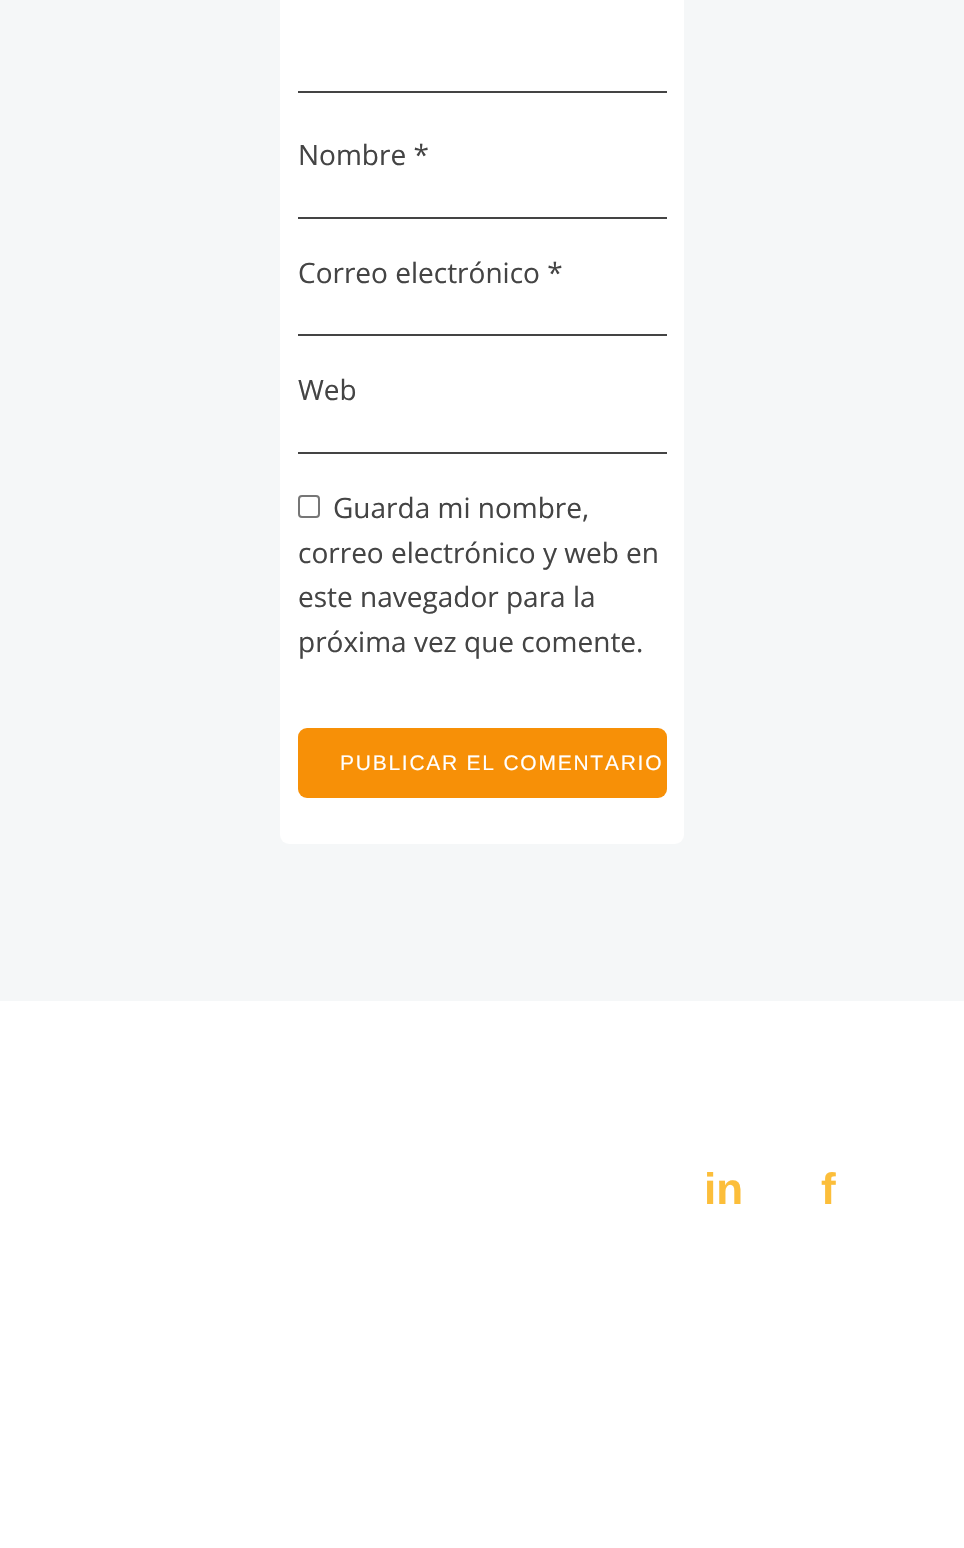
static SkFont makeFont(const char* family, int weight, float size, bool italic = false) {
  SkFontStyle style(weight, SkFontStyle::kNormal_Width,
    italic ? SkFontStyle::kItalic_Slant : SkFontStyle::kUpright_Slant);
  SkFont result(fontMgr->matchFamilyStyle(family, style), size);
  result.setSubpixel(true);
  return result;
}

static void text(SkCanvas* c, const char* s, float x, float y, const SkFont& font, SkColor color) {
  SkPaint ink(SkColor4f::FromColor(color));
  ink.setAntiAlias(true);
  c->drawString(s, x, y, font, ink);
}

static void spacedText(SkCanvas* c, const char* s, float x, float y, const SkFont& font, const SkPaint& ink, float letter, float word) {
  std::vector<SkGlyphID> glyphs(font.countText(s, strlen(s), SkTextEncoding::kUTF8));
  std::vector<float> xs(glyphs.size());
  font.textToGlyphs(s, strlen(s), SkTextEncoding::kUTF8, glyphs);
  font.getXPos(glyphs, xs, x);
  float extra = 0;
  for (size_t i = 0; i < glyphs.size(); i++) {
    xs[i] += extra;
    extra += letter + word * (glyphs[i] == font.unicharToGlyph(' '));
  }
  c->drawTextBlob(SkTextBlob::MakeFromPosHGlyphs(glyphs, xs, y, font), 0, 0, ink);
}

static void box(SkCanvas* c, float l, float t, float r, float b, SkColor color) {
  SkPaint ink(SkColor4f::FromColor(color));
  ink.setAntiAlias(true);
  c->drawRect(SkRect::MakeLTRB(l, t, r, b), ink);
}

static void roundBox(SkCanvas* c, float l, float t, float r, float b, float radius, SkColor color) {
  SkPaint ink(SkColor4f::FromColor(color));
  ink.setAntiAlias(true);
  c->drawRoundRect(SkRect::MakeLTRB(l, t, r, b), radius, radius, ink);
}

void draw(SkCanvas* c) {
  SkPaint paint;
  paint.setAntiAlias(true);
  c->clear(0xffffffff);
  box(c, 0, 0, 964, 1001, 0xfff5f7f8);
  roundBox(c, 280, -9, 684, 844, 9, 0xffffffff);
  box(c, 298, 91, 667, 93, 0xff444444);
  SkFont face1 = makeFont("Open Sans", 400, 28);
  text(c, "Nombre *", 298, 165, face1, 0xff444444);
  box(c, 298, 217, 667, 219, 0xff444444);
  text(c, "Correo electrónico *", 298, 283, face1, 0xff444444);
  box(c, 298, 334, 667, 336, 0xff444444);
  text(c, "Web", 298, 400, face1, 0xff444444);
  box(c, 298, 452, 667, 454, 0xff444444);
  paint.setStyle(SkPaint::kStroke_Style);
  paint.setStrokeWidth(2);
  paint.setColor(0xff767676);
  c->drawRoundRect(SkRect::MakeLTRB(299, 496, 319, 517), 3, 3, paint);
  text(c, "Guarda mi nombre,", 333, 518, face1, 0xff444444);
  text(c, "correo electrónico y web en", 298, 563, face1, 0xff444444);
  text(c, "este navegador para la", 298, 607, face1, 0xff444444);
  text(c, "próxima vez que comente.", 298, 652, face1, 0xff444444);
  roundBox(c, 298, 728, 667, 798, 9, 0xfff79007);
  SkFont face2 = makeFont("Liberation Sans", 400, 21);
  paint.setStyle(SkPaint::kFill_Style);
  paint.setColor(0xffffffff);
  spacedText(c, "PUBLICAR EL COMENTARIO", 340, 770, face2, paint, 1.75f, 0);
  SkFont face3 = makeFont("Liberation Sans", 700, 44);
  text(c, "in", 704, 1204, face3, 0xfffcbe3a);
  text(c, "f", 821, 1204, face3, 0xfffcbe3a);
}
